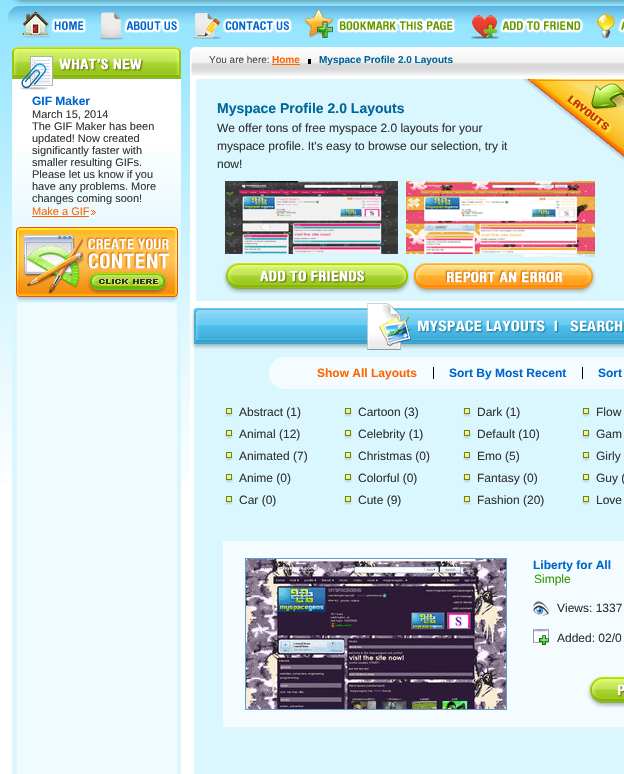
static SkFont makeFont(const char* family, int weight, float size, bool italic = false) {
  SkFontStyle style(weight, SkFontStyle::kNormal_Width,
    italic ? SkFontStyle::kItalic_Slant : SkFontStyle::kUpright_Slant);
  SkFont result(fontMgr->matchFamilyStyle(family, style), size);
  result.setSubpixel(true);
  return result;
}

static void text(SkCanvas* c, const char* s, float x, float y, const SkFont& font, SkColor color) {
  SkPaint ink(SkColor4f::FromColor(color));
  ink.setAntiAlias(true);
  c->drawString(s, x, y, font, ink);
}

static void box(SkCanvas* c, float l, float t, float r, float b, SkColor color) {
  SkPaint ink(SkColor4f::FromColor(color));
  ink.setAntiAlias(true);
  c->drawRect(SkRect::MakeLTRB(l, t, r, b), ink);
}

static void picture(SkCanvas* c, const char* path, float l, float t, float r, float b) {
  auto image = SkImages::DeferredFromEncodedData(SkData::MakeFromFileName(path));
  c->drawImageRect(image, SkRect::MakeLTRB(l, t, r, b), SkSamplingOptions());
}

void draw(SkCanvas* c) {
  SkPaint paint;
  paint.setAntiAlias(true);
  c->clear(0xffffffff);
  picture(c, "img_01.png", 0, 0, 624, 483);
  picture(c, "img_02.png", 12, 0, 184, 6);
  picture(c, "img_03.png", 184, 0, 308, 6);
  picture(c, "img_04.png", 308, 0, 449, 6);
  picture(c, "img_05.png", 449, 0, 583, 6);
  picture(c, "img_06.png", 583, 0, 624, 6);
  picture(c, "img_07.png", 8, 6, 624, 24);
  picture(c, "img_08.png", 22, 11, 86, 38);
  picture(c, "img_09.png", 100, 12, 180, 40);
  picture(c, "img_10.png", 193, 13, 292, 39);
  picture(c, "img_11.png", 305, 9, 455, 38);
  picture(c, "img_12.png", 471, 15, 584, 39);
  picture(c, "img_13.png", 597, 14, 624, 38);
  box(c, 12, 314, 181, 774, 0xffdaf6ff);
  picture(c, "img_14.png", 12, 47, 181, 79);
  box(c, 12, 79, 181, 150, 0xffffffff);
  picture(c, "img_15.png", 20, 56, 144, 90);
  picture(c, "img_16.png", 12, 150, 181, 303);
  SkFont face1 = makeFont("Liberation Sans", 700, 12);
  text(c, "GIF Maker", 32, 105, face1, 0xff0066cc);
  SkFont face2 = makeFont("Liberation Sans", 400, 11);
  text(c, "March 15, 2014", 32, 118, face2, 0xff333333);
  text(c, "The GIF Maker has been", 32, 130, face2, 0xff333333);
  text(c, "updated! Now created", 32, 142, face2, 0xff333333);
  text(c, "significantly faster with", 32, 154, face2, 0xff333333);
  text(c, "smaller resulting GIFs.", 32, 166, face2, 0xff333333);
  text(c, "Please let us know if you", 32, 178, face2, 0xff333333);
  text(c, "have any problems. More", 32, 190, face2, 0xff333333);
  text(c, "changes coming soon!", 32, 202, face2, 0xff333333);
  text(c, "Make a GIF", 32, 215, face2, 0xffff6600);
  box(c, 32, 216, 89, 217, 0xffff6600);
  picture(c, "img_17.png", 91, 210, 96, 215);
  picture(c, "img_18.png", 16, 227, 178, 302);
  box(c, 17, 303, 177, 774, 0xfff0fbff);
  box(c, 190, 76, 624, 483, 0xffffffff);
  picture(c, "img_19.png", 190, 47, 624, 76);
  SkFont face3 = makeFont("Liberation Sans", 400, 10);
  text(c, "You are here:", 209, 63, face3, 0xff474c4f);
  SkFont face4 = makeFont("Liberation Sans", 700, 10);
  text(c, "Home", 272, 63, face4, 0xffff6600);
  box(c, 272, 64, 300, 65, 0xffff6600);
  box(c, 308, 59, 311, 64, 0xff000000);
  text(c, "Myspace Profile 2.0 Layouts", 319, 63, face4, 0xff006699);
  box(c, 196, 79, 624, 301, 0xffdaf6ff);
  picture(c, "img_20.png", 196, 79, 198, 81);
  SkFont face5 = makeFont("Liberation Sans", 700, 14);
  text(c, "Myspace Profile 2.0 Layouts", 217, 113, face5, 0xff006699);
  SkFont face6 = makeFont("Liberation Sans", 400, 12);
  text(c, "We offer tons of free myspace 2.0 layouts for your", 217, 132, face6, 0xff333333);
  text(c, "myspace profile. It's easy to browse our selection, try it", 217, 150, face6, 0xff333333);
  text(c, "now!", 217, 168, face6, 0xff333333);
  picture(c, "img_21.png", 225, 181, 595, 257);
  picture(c, "img_22.png", 238, 263, 396, 294);
  picture(c, "img_23.png", 223, 263, 238, 294);
  picture(c, "img_24.png", 260, 270, 366, 283);
  picture(c, "img_25.png", 396, 263, 411, 294);
  picture(c, "img_26.png", 426, 263, 581, 294);
  picture(c, "img_27.png", 411, 263, 426, 294);
  picture(c, "img_28.png", 445, 269, 562, 283);
  picture(c, "img_29.png", 581, 263, 596, 294);
  picture(c, "img_30.png", 522, 79, 624, 161);
  box(c, 194, 308, 624, 774, 0xffdaf6ff);
  picture(c, "img_31.png", 191, 303, 624, 349);
  picture(c, "img_32.png", 367, 303, 547, 350);
  picture(c, "img_33.png", 554, 320, 624, 333);
  box(c, 284, 357, 624, 389, 0xfff4fcff);
  picture(c, "img_34.png", 269, 357, 284, 389);
  text(c, "Show All Layouts", 317, 377, face1, 0xffff6600);
  box(c, 433, 367, 434, 379, 0xff000000);
  text(c, "Sort By Most Recent", 449, 377, face1, 0xff0066cc);
  box(c, 582, 367, 583, 379, 0xff000000);
  text(c, "Sort", 598, 377, face1, 0xff0066cc);
  picture(c, "img_35.png", 225, 408, 233, 417);
  text(c, "Abstract (1)", 239, 416, face6, 0xff333333);
  picture(c, "img_35.png", 225, 430, 233, 439);
  text(c, "Animal (12)", 239, 438, face6, 0xff333333);
  picture(c, "img_35.png", 225, 452, 233, 461);
  text(c, "Animated (7)", 239, 460, face6, 0xff333333);
  picture(c, "img_35.png", 225, 474, 233, 483);
  text(c, "Anime (0)", 239, 482, face6, 0xff333333);
  picture(c, "img_35.png", 225, 496, 233, 505);
  text(c, "Car (0)", 239, 504, face6, 0xff333333);
  picture(c, "img_35.png", 344, 408, 352, 417);
  text(c, "Cartoon (3)", 358, 416, face6, 0xff333333);
  picture(c, "img_35.png", 344, 430, 352, 439);
  text(c, "Celebrity (1)", 358, 438, face6, 0xff333333);
  picture(c, "img_35.png", 344, 452, 352, 461);
  text(c, "Christmas (0)", 358, 460, face6, 0xff333333);
  picture(c, "img_35.png", 344, 474, 352, 483);
  text(c, "Colorful (0)", 358, 482, face6, 0xff333333);
  picture(c, "img_35.png", 344, 496, 352, 505);
  text(c, "Cute (9)", 358, 504, face6, 0xff333333);
  picture(c, "img_35.png", 463, 408, 471, 417);
  text(c, "Dark (1)", 477, 416, face6, 0xff333333);
  picture(c, "img_35.png", 463, 430, 471, 439);
  text(c, "Default (10)", 477, 438, face6, 0xff333333);
  picture(c, "img_35.png", 463, 452, 471, 461);
  text(c, "Emo (5)", 477, 460, face6, 0xff333333);
  picture(c, "img_35.png", 463, 474, 471, 483);
  text(c, "Fantasy (0)", 477, 482, face6, 0xff333333);
  picture(c, "img_35.png", 463, 496, 471, 505);
  text(c, "Fashion (20)", 477, 504, face6, 0xff333333);
  picture(c, "img_35.png", 582, 408, 590, 417);
  text(c, "Flow", 596, 416, face6, 0xff333333);
  picture(c, "img_35.png", 582, 430, 590, 439);
  text(c, "Gam", 596, 438, face6, 0xff333333);
  picture(c, "img_35.png", 582, 452, 590, 461);
  text(c, "Girly", 596, 460, face6, 0xff333333);
  picture(c, "img_35.png", 582, 474, 590, 483);
  text(c, "Guy (", 596, 482, face6, 0xff333333);
  picture(c, "img_35.png", 582, 496, 590, 505);
  text(c, "Love", 596, 504, face6, 0xff333333);
  box(c, 223, 541, 624, 727, 0xfff4fcff);
  paint.setStyle(SkPaint::kStroke_Style);
  paint.setStrokeWidth(1);
  paint.setColor(0xff6699cc);
  c->drawRect(SkRect::MakeLTRB(245.5f, 558.5f, 506.5f, 709.5f), paint);
  picture(c, "img_36.png", 246, 559, 506, 709);
  text(c, "Liberty for All", 533, 569, face1, 0xff0066cc);
  text(c, "Simple", 534, 583, face6, 0xff339900);
  picture(c, "img_37.png", 533, 601, 549, 616);
  text(c, "Views: 1337", 557, 612, face6, 0xff333333);
  picture(c, "img_38.png", 533, 629, 549, 645);
  text(c, "Added: 02/0", 557, 642, face6, 0xff333333);
  picture(c, "img_39.png", 587, 676, 624, 708);
}
